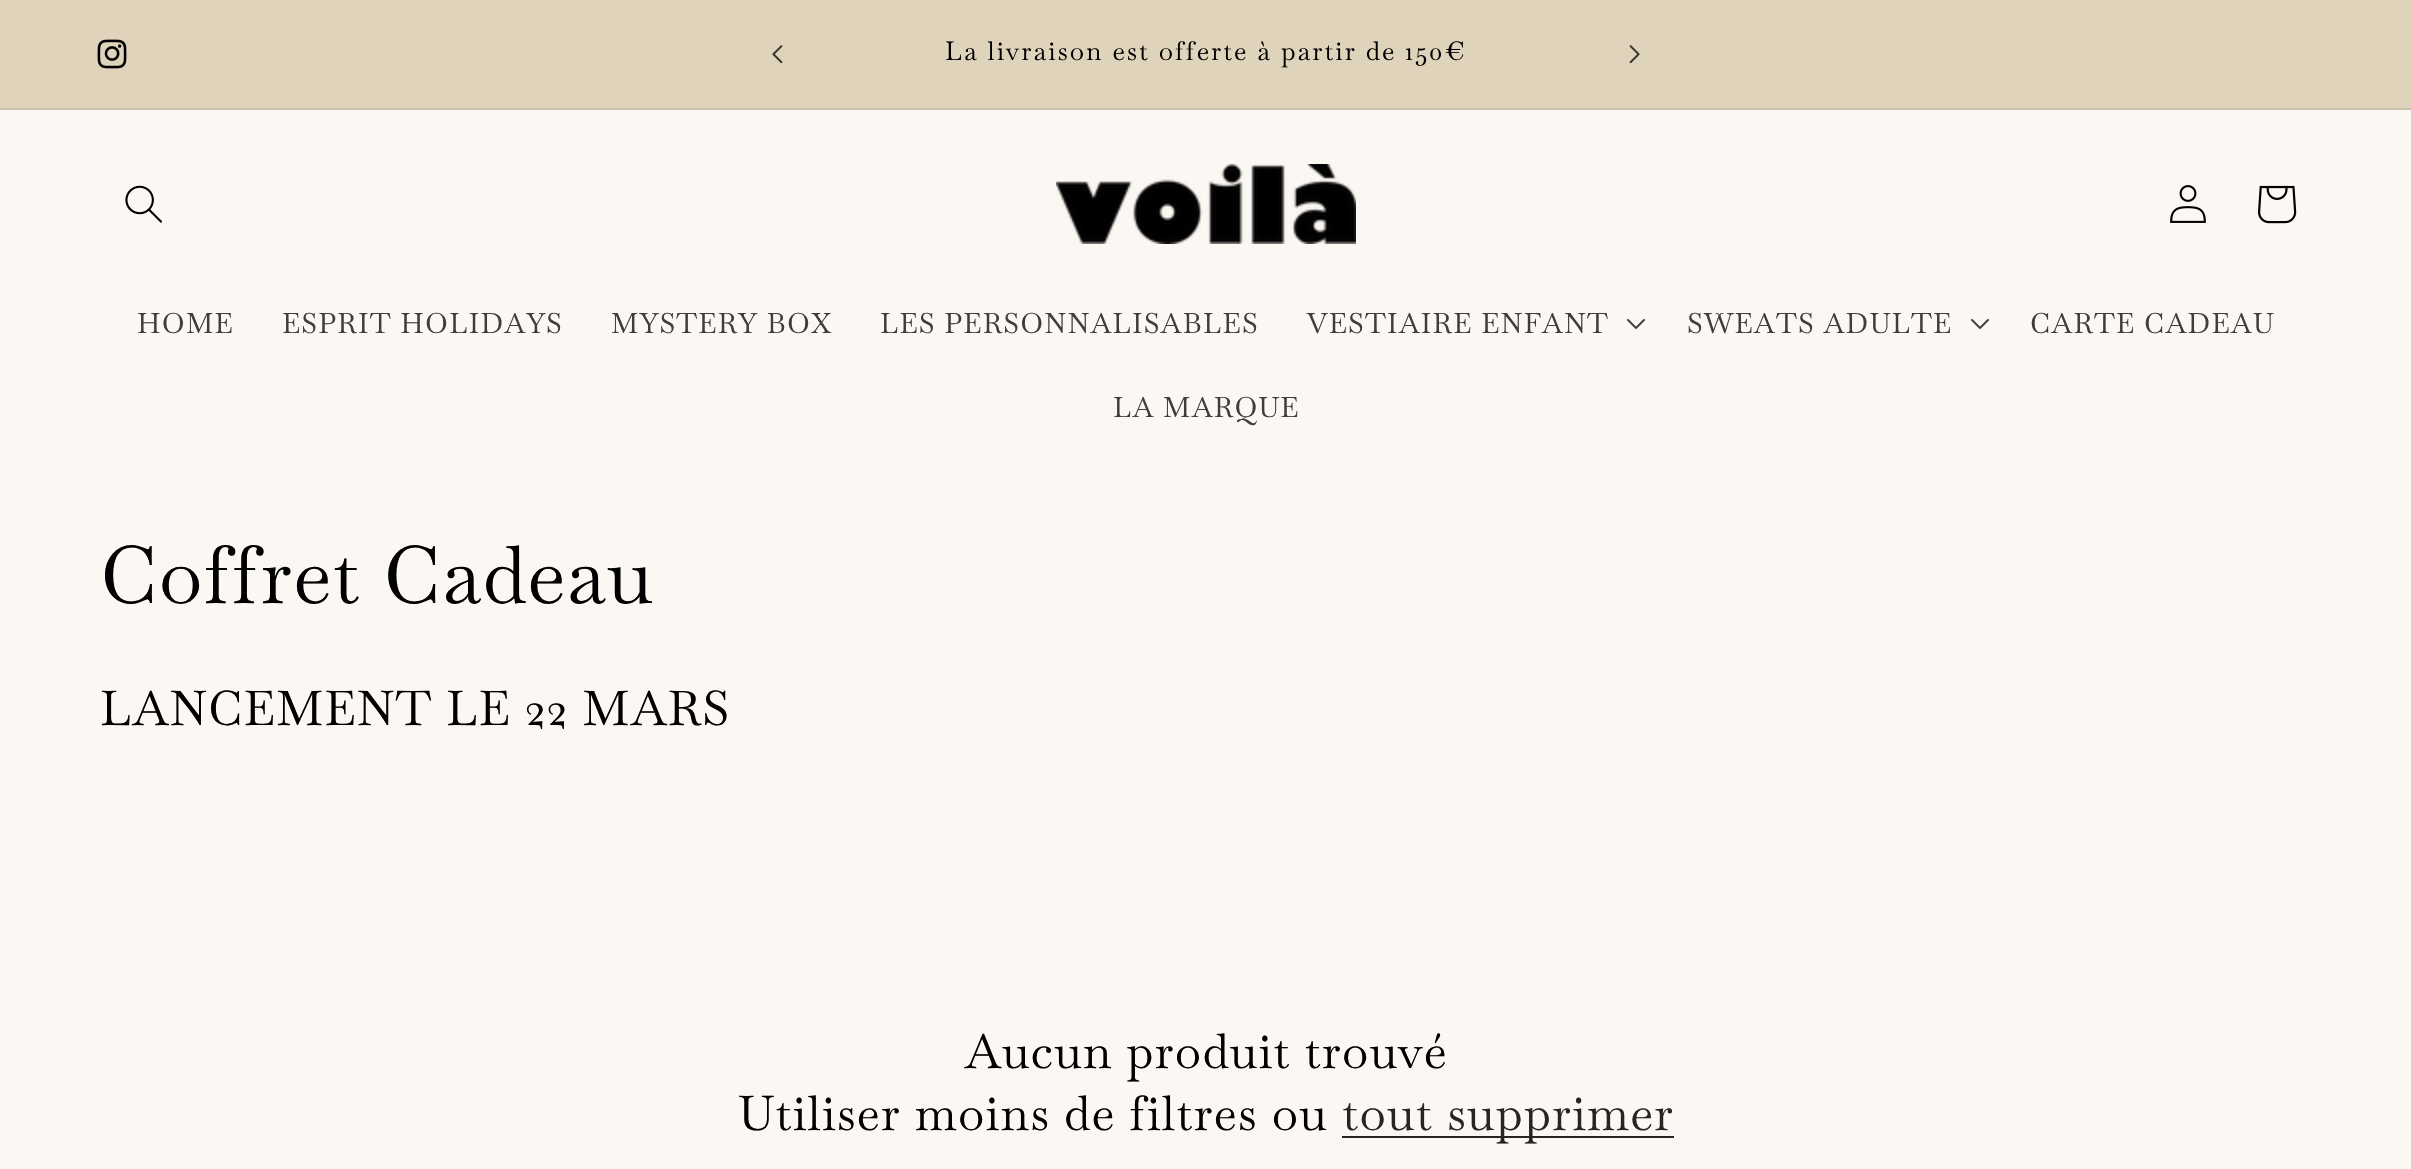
static SkFont makeFont(const char* family, int weight, float size, bool italic = false) {
  SkFontStyle style(weight, SkFontStyle::kNormal_Width,
    italic ? SkFontStyle::kItalic_Slant : SkFontStyle::kUpright_Slant);
  SkFont result(fontMgr->matchFamilyStyle(family, style), size);
  result.setSubpixel(true);
  return result;
}

static void spacedText(SkCanvas* c, const char* s, float x, float y, const SkFont& font, const SkPaint& ink, float letter, float word) {
  std::vector<SkGlyphID> glyphs(font.countText(s, strlen(s), SkTextEncoding::kUTF8));
  std::vector<float> xs(glyphs.size());
  font.textToGlyphs(s, strlen(s), SkTextEncoding::kUTF8, glyphs);
  font.getXPos(glyphs, xs, x);
  float extra = 0;
  for (size_t i = 0; i < glyphs.size(); i++) {
    xs[i] += extra;
    extra += letter + word * (glyphs[i] == font.unicharToGlyph(' '));
  }
  c->drawTextBlob(SkTextBlob::MakeFromPosHGlyphs(glyphs, xs, y, font), 0, 0, ink);
}

static void box(SkCanvas* c, float l, float t, float r, float b, SkColor color) {
  SkPaint ink(SkColor4f::FromColor(color));
  ink.setAntiAlias(true);
  c->drawRect(SkRect::MakeLTRB(l, t, r, b), ink);
}

static void picture(SkCanvas* c, const char* path, float l, float t, float r, float b) {
  auto image = SkImages::DeferredFromEncodedData(SkData::MakeFromFileName(path));
  c->drawImageRect(image, SkRect::MakeLTRB(l, t, r, b), SkSamplingOptions());
}

void draw(SkCanvas* c) {
  SkPaint paint;
  paint.setAntiAlias(true);
  c->clear(0xfffbf7f2);
  box(c, 0, 0, 2411, 108, 0xffdfd3bb);
  box(c, 0, 108, 2411, 110, 0xffcdc2ac);
  picture(c, "img_01.png", 97, 39, 127, 69);
  picture(c, "img_02.png", 772, 45, 783, 64);
  SkFont face1 = makeFont("Baskervville", 400, 26);
  paint.setColor(0xff000000);
  spacedText(c, "La livraison est offerte à partir de 150€", 945, 60, face1, paint, 2, 0);
  picture(c, "img_03.png", 1629, 45, 1640, 64);
  picture(c, "img_04.png", 125, 185, 162, 223);
  picture(c, "img_05.png", 1056, 164, 1356, 244);
  picture(c, "img_06.png", 2170, 185, 2206, 223);
  picture(c, "img_07.png", 2258, 185, 2297, 224);
  SkFont face2 = makeFont("Baskervville", 400, 28);
  paint.setColor(0xff3f3e3d);
  spacedText(c, "HOME", 137, 333, face2, paint, 1.2f, 0);
  spacedText(c, "ESPRIT HOLIDAYS", 282, 333, face2, paint, 1.2f, 0);
  spacedText(c, "MYSTERY BOX", 611, 333, face2, paint, 1.2f, 0);
  spacedText(c, "LES PERSONNALISABLES", 880, 333, face2, paint, 1.2f, 0);
  spacedText(c, "VESTIAIRE ENFANT", 1307, 333, face2, paint, 1.2f, 0);
  picture(c, "img_08.png", 1627, 319, 1645, 329);
  spacedText(c, "SWEATS ADULTE", 1687, 333, face2, paint, 1.2f, 0);
  picture(c, "img_08.png", 1971, 319, 1989, 329);
  spacedText(c, "CARTE CADEAU", 2030, 333, face2, paint, 1.2f, 0);
  spacedText(c, "LA MARQUE", 1113, 417, face2, paint, 1.2f, 0);
  SkFont face3 = makeFont("Baskervville", 400, 80);
  paint.setColor(0xff000000);
  spacedText(c, "Coffret Cadeau", 100, 603, face3, paint, 1.2f, 0);
  SkFont face4 = makeFont("Baskervville", 400, 48);
  spacedText(c, "LANCEMENT LE 22 MARS", 100, 725, face4, paint, 1.2f, 0);
  spacedText(c, "Aucun produit trouvé", 965, 1068, face4, paint, 1.2f, 0);
  spacedText(c, "Utiliser moins de filtres ou", 738, 1130, face4, paint, 1.2f, 0);
  box(c, 1342, 1136, 1674, 1138, 0xff262524);
  paint.setColor(0xff252524);
  spacedText(c, "tout supprimer", 1342, 1130, face4, paint, 1.2f, 0);
}
